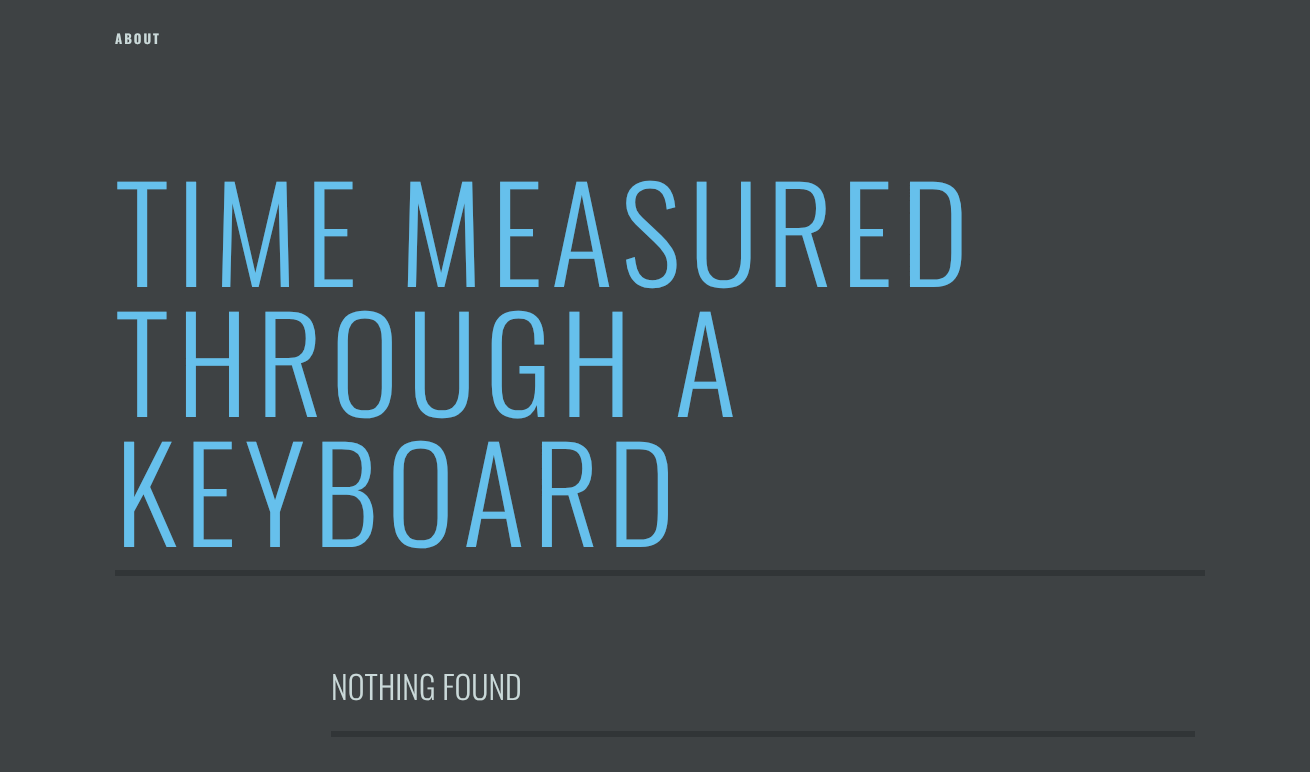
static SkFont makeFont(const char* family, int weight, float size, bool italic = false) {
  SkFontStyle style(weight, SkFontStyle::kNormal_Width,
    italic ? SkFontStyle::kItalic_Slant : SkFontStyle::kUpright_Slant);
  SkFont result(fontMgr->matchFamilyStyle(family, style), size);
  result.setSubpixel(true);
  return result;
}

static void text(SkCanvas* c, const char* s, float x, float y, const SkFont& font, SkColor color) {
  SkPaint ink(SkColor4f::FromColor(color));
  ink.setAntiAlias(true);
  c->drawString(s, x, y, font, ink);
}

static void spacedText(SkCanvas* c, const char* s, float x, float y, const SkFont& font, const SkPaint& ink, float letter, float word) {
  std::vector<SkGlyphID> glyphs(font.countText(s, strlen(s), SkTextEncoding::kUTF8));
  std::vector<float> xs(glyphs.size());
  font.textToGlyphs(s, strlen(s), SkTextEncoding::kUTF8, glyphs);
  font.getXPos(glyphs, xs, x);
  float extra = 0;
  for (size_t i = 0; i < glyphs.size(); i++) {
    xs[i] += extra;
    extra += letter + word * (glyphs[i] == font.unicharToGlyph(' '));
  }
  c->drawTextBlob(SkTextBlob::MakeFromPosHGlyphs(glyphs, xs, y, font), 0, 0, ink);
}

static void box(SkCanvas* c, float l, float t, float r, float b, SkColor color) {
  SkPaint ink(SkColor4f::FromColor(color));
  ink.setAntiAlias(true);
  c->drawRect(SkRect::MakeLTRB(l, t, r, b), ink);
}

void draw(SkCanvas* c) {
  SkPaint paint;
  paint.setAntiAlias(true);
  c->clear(0xff3e4244);
  SkFont face1 = makeFont("Oswald", 700, 13);
  paint.setColor(0xffcad9d9);
  spacedText(c, "ABOUT", 115, 44, face1, paint, 2, 0);
  SkFont face2 = makeFont("Oswald", 300, 130);
  paint.setColor(0xff66c0ec);
  spacedText(c, "TIME MEASURED", 115, 287, face2, paint, 8, 0);
  spacedText(c, "THROUGH A", 115, 417, face2, paint, 8, 0);
  spacedText(c, "KEYBOARD", 115, 547, face2, paint, 8, 0);
  box(c, 115, 570, 1205, 576, 0xff313537);
  SkFont face3 = makeFont("Oswald", 300, 32);
  text(c, "NOTHING FOUND", 331, 700, face3, 0xffcad9d9);
  box(c, 331, 731, 1195, 737, 0xff313537);
}
